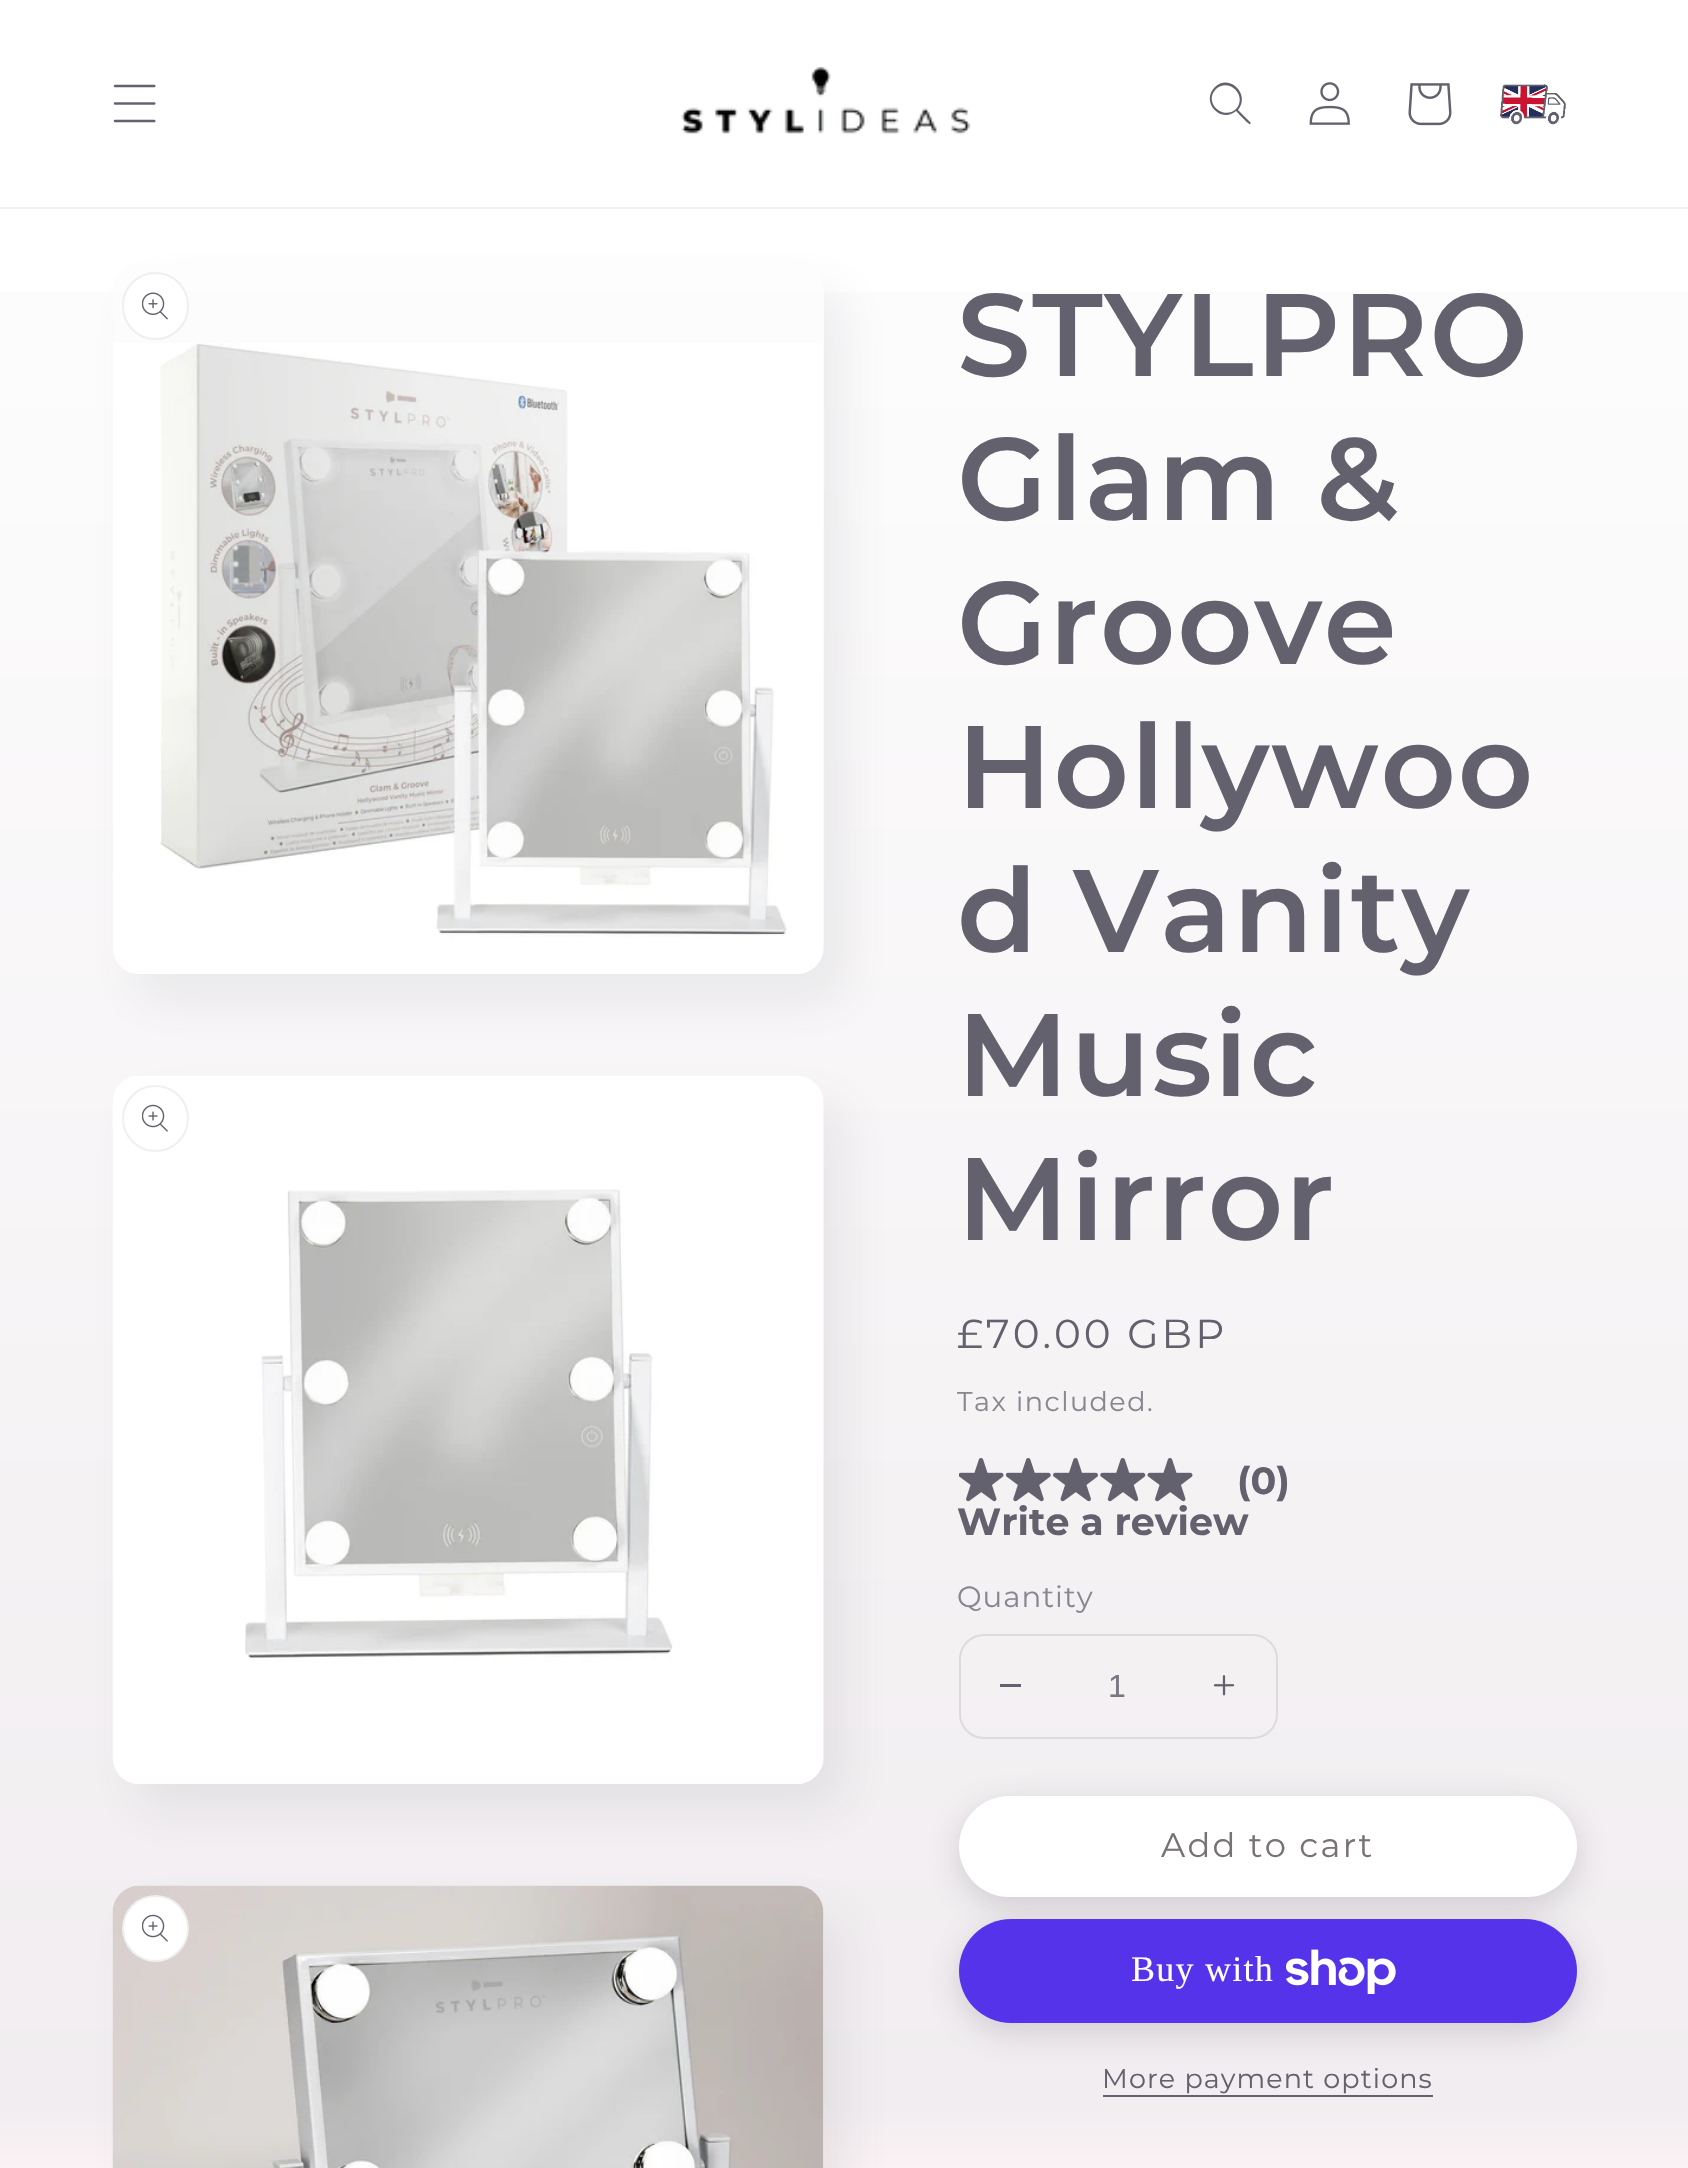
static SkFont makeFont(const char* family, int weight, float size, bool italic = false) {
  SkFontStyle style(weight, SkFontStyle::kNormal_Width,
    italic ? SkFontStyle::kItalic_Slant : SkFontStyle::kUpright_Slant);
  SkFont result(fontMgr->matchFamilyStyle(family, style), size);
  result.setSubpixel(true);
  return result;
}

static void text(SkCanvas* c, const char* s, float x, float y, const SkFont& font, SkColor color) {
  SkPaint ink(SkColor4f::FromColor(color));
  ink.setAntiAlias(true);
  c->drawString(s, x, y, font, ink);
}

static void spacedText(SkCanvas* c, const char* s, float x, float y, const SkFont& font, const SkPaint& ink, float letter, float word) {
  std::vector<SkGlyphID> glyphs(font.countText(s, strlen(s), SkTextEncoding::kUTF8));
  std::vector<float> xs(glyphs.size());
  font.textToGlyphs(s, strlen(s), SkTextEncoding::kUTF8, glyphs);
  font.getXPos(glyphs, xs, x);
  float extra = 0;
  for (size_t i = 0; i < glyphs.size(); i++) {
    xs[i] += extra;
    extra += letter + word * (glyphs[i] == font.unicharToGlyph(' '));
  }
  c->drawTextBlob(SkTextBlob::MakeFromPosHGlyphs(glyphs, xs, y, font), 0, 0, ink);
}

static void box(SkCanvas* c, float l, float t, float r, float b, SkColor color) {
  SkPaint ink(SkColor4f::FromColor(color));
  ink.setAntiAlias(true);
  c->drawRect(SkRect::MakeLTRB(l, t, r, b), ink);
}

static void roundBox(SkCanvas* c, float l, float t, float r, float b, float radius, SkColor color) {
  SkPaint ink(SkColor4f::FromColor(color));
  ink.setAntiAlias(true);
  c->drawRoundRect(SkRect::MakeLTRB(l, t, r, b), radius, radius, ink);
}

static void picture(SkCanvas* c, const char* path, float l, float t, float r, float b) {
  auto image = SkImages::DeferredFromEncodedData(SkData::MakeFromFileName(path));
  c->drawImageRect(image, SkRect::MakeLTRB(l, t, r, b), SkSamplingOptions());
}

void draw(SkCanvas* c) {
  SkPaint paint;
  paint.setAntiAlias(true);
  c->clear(0xffffffff);
  {
    const SkColor colors[] = {0xffffffff, 0xfff1edf0, 0xfffaf2f4};
    const float stops[] = {0, 0.97f, 1};
    const SkPoint ends[] = {{845, 0}, {845, 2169}};
    paint.setShader(SkGradientShader::MakeLinear(ends, colors, stops, 3, SkTileMode::kClamp));
    paint.setAlpha(255);
  }
  c->drawRect(SkRect::MakeLTRB(0, 292, 1688, 2168), paint);
  box(c, 0, 207, 1688, 209, 0xfff2f1f2);
  picture(c, "img_01.png", 113, 84, 156, 123);
  picture(c, "img_02.png", 681, 67, 971, 134);
  paint.setShader(nullptr);
  paint.setColor(0xff64616e);
  c->drawPath(SkPathBuilder(SkPathFillType::kEvenOdd).moveTo(1236, 109).cubicTo(1223, 121, 1203, 102, 1216, 89).cubicTo(1229, 77, 1248, 96, 1236, 109).close().moveTo(1236, 111).cubicTo(1221, 124, 1200, 102, 1215, 87).cubicTo(1229, 73, 1251, 94, 1238, 110).lineTo(1251, 123).lineTo(1250, 124).cubicTo(1249, 125, 1238, 113, 1236, 111).close().detach(), paint);
  picture(c, "img_03.png", 1309, 82, 1350, 125);
  picture(c, "img_04.png", 1408, 83, 1452, 126);
  picture(c, "img_05.png", 1500, 84, 1566, 125);
  paint.setColor(0x1a64616e);
  paint.setMaskFilter(SkMaskFilter::MakeBlur(kNormal_SkBlurStyle, 22.5f));
  c->drawRoundRect(SkRect::MakeLTRB(135, 290, 846, 1001), 27, 27, paint);
  paint.setMaskFilter(nullptr);
  {
    const SkColor colors[] = {0xffffffff, 0xfff1edf0, 0xfffaf2f4};
    const float stops[] = {0, 0.97f, 1};
    const SkPoint ends[] = {{845, 0}, {845, 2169}};
    paint.setShader(SkGradientShader::MakeLinear(ends, colors, stops, 3, SkTileMode::kClamp));
    paint.setAlpha(255);
  }
  c->drawRoundRect(SkRect::MakeLTRB(113, 263, 824, 974), 27, 27, paint);
  picture(c, "img_06.png", 113, 343, 823, 974);
  paint.setShader(nullptr);
  paint.setColor(0xffffffff);
  c->drawRoundRect(SkRect::MakeLTRB(123, 273, 188, 339), 32.5f, 32.5f, paint);
  paint.setStyle(SkPaint::kStroke_Style);
  paint.setStrokeWidth(2);
  paint.setColor(0xffefeff0);
  c->drawRoundRect(SkRect::MakeLTRB(123, 273, 188, 339), 32.5f, 32.5f, paint);
  picture(c, "img_07.png", 142, 292, 168, 320);
  paint.setStyle(SkPaint::kFill_Style);
  paint.setColor(0x1a64616e);
  paint.setMaskFilter(SkMaskFilter::MakeBlur(kNormal_SkBlurStyle, 22.5f));
  c->drawRoundRect(SkRect::MakeLTRB(135, 1103, 846, 1811), 27, 27, paint);
  paint.setMaskFilter(nullptr);
  {
    const SkColor colors[] = {0xffffffff, 0xfff1edf0, 0xfffaf2f4};
    const float stops[] = {0, 0.97f, 1};
    const SkPoint ends[] = {{845, 0}, {845, 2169}};
    paint.setShader(SkGradientShader::MakeLinear(ends, colors, stops, 3, SkTileMode::kClamp));
    paint.setAlpha(255);
  }
  c->drawRoundRect(SkRect::MakeLTRB(113, 1076, 824, 1784), 27, 27, paint);
  picture(c, "img_08.png", 112, 1076, 823, 1784);
  paint.setStyle(SkPaint::kStroke_Style);
  paint.setShader(nullptr);
  paint.setColor(0xfff0eff1);
  c->drawCircle(155.5f, 1118.5f, 32.5f, paint);
  picture(c, "img_09.png", 142, 1104, 168, 1132);
  paint.setStyle(SkPaint::kFill_Style);
  paint.setColor(0x1a64616e);
  paint.setMaskFilter(SkMaskFilter::MakeBlur(kNormal_SkBlurStyle, 22.5f));
  c->drawRoundRect(SkRect::MakeLTRB(135, 1913, 846, 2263), 27, 27, paint);
  paint.setMaskFilter(nullptr);
  {
    const SkColor colors[] = {0xffffffff, 0xfff1edf0, 0xfffaf2f4};
    const float stops[] = {0, 0.97f, 1};
    const SkPoint ends[] = {{845, 0}, {845, 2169}};
    paint.setShader(SkGradientShader::MakeLinear(ends, colors, stops, 3, SkTileMode::kClamp));
    paint.setAlpha(255);
  }
  c->drawPath(SkPathBuilder().moveTo(140, 1886).lineTo(797, 1886).cubicTo(812, 1886, 824, 1898, 824, 1913).lineTo(824, 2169).lineTo(113, 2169).lineTo(113, 1913).cubicTo(113, 1898, 125, 1886, 140, 1886).close().detach(), paint);
  picture(c, "img_10.png", 112, 1885, 824, 2168);
  paint.setShader(nullptr);
  paint.setColor(0xffffffff);
  c->drawCircle(155.5f, 1928.5f, 33.5f, paint);
  paint.setStyle(SkPaint::kStroke_Style);
  paint.setColor(0x1a64616e);
  c->drawCircle(155.5f, 1928.5f, 32.5f, paint);
  picture(c, "img_09.png", 142, 1914, 168, 1942);
  SkFont face1 = makeFont("Montserrat", 600, 117);
  paint.setStyle(SkPaint::kFill_Style);
  paint.setColor(0xff64616e);
  spacedText(c, "STYLPRO", 957, 376, face1, paint, 1.75f, 0);
  spacedText(c, "Glam &", 957, 520, face1, paint, 1.75f, 0);
  spacedText(c, "Groove", 957, 664, face1, paint, 1.75f, 0);
  spacedText(c, "Hollywoo", 957, 808, face1, paint, 1.75f, 0);
  spacedText(c, "d Vanity", 957, 952, face1, paint, 1.75f, 0);
  spacedText(c, "Music", 957, 1096, face1, paint, 1.75f, 0);
  spacedText(c, "Mirror", 957, 1240, face1, paint, 1.75f, 0);
  SkFont face2 = makeFont("Montserrat", 400, 40.5f);
  spacedText(c, "£70.00 GBP", 957, 1348, face2, paint, 3, 0);
  SkFont face3 = makeFont("Montserrat", 400, 27);
  paint.setColor(0xff898690);
  spacedText(c, "Tax included.", 957, 1411, face3, paint, 1.5f, 0);
  picture(c, "img_11.png", 959, 1458, 1004, 1502);
  picture(c, "img_12.png", 1005, 1458, 1051, 1502);
  picture(c, "img_13.png", 1053, 1458, 1098, 1502);
  picture(c, "img_14.png", 1100, 1458, 1146, 1502);
  picture(c, "img_15.png", 1147, 1458, 1193, 1502);
  SkFont face4 = makeFont("Montserrat", 700, 38);
  text(c, "(0)", 1237, 1494, face4, 0xff64616e);
  text(c, "Write a review", 957, 1535, face4, 0xff64616e);
  SkFont face5 = makeFont("Montserrat", 400, 29.25f);
  spacedText(c, "Quantity", 957, 1607, face5, paint, 1, 0);
  box(c, 1000, 1684, 1021, 1687, 0xff64616e);
  picture(c, "img_16.png", 1213, 1675, 1235, 1696);
  paint.setStyle(SkPaint::kStroke_Style);
  paint.setColor(0xffdedbdf);
  c->drawRoundRect(SkRect::MakeLTRB(960, 1635, 1277, 1738), 24, 24, paint);
  SkFont face6 = makeFont("Liberation Sans", 400, 32);
  text(c, "1", 1108, 1697, face6, 0xff7a7782);
  paint.setStyle(SkPaint::kFill_Style);
  paint.setColor(0x4064616e);
  paint.setMaskFilter(SkMaskFilter::MakeBlur(kNormal_SkBlurStyle, 17));
  c->drawRoundRect(SkRect::MakeLTRB(959, 1805, 1577, 1906), 50.5f, 50.5f, paint);
  paint.setMaskFilter(nullptr);
  paint.setMaskFilter(SkMaskFilter::MakeBlur(kNormal_SkBlurStyle, 17));
  c->drawRoundRect(SkRect::MakeLTRB(959, 1928, 1577, 2032), 52, 52, paint);
  paint.setMaskFilter(nullptr);
  roundBox(c, 959, 1796, 1577, 1897, 50.5f, 0xffffffff);
  SkFont face7 = makeFont("Montserrat", 400, 33.75f);
  paint.setColor(0xff787275);
  spacedText(c, "Add to cart", 1161, 1857, face7, paint, 2.25f, 0);
  roundBox(c, 959, 1919, 1577, 2023, 52, 0xff5433eb);
  SkFont face8 = makeFont("Liberation Serif", 400, 36);
  paint.setColor(0xffffffff);
  spacedText(c, "Buy with", 1131, 1981, face8, paint, 1.25f, 0);
  picture(c, "img_17.png", 1286, 1949, 1396, 1994);
  paint.setColor(0xff64616e);
  spacedText(c, "More payment options", 1102, 2088, face3, paint, 1.1f, 0);
  box(c, 1103, 2095, 1433, 2097, 0xff64616e);
}
